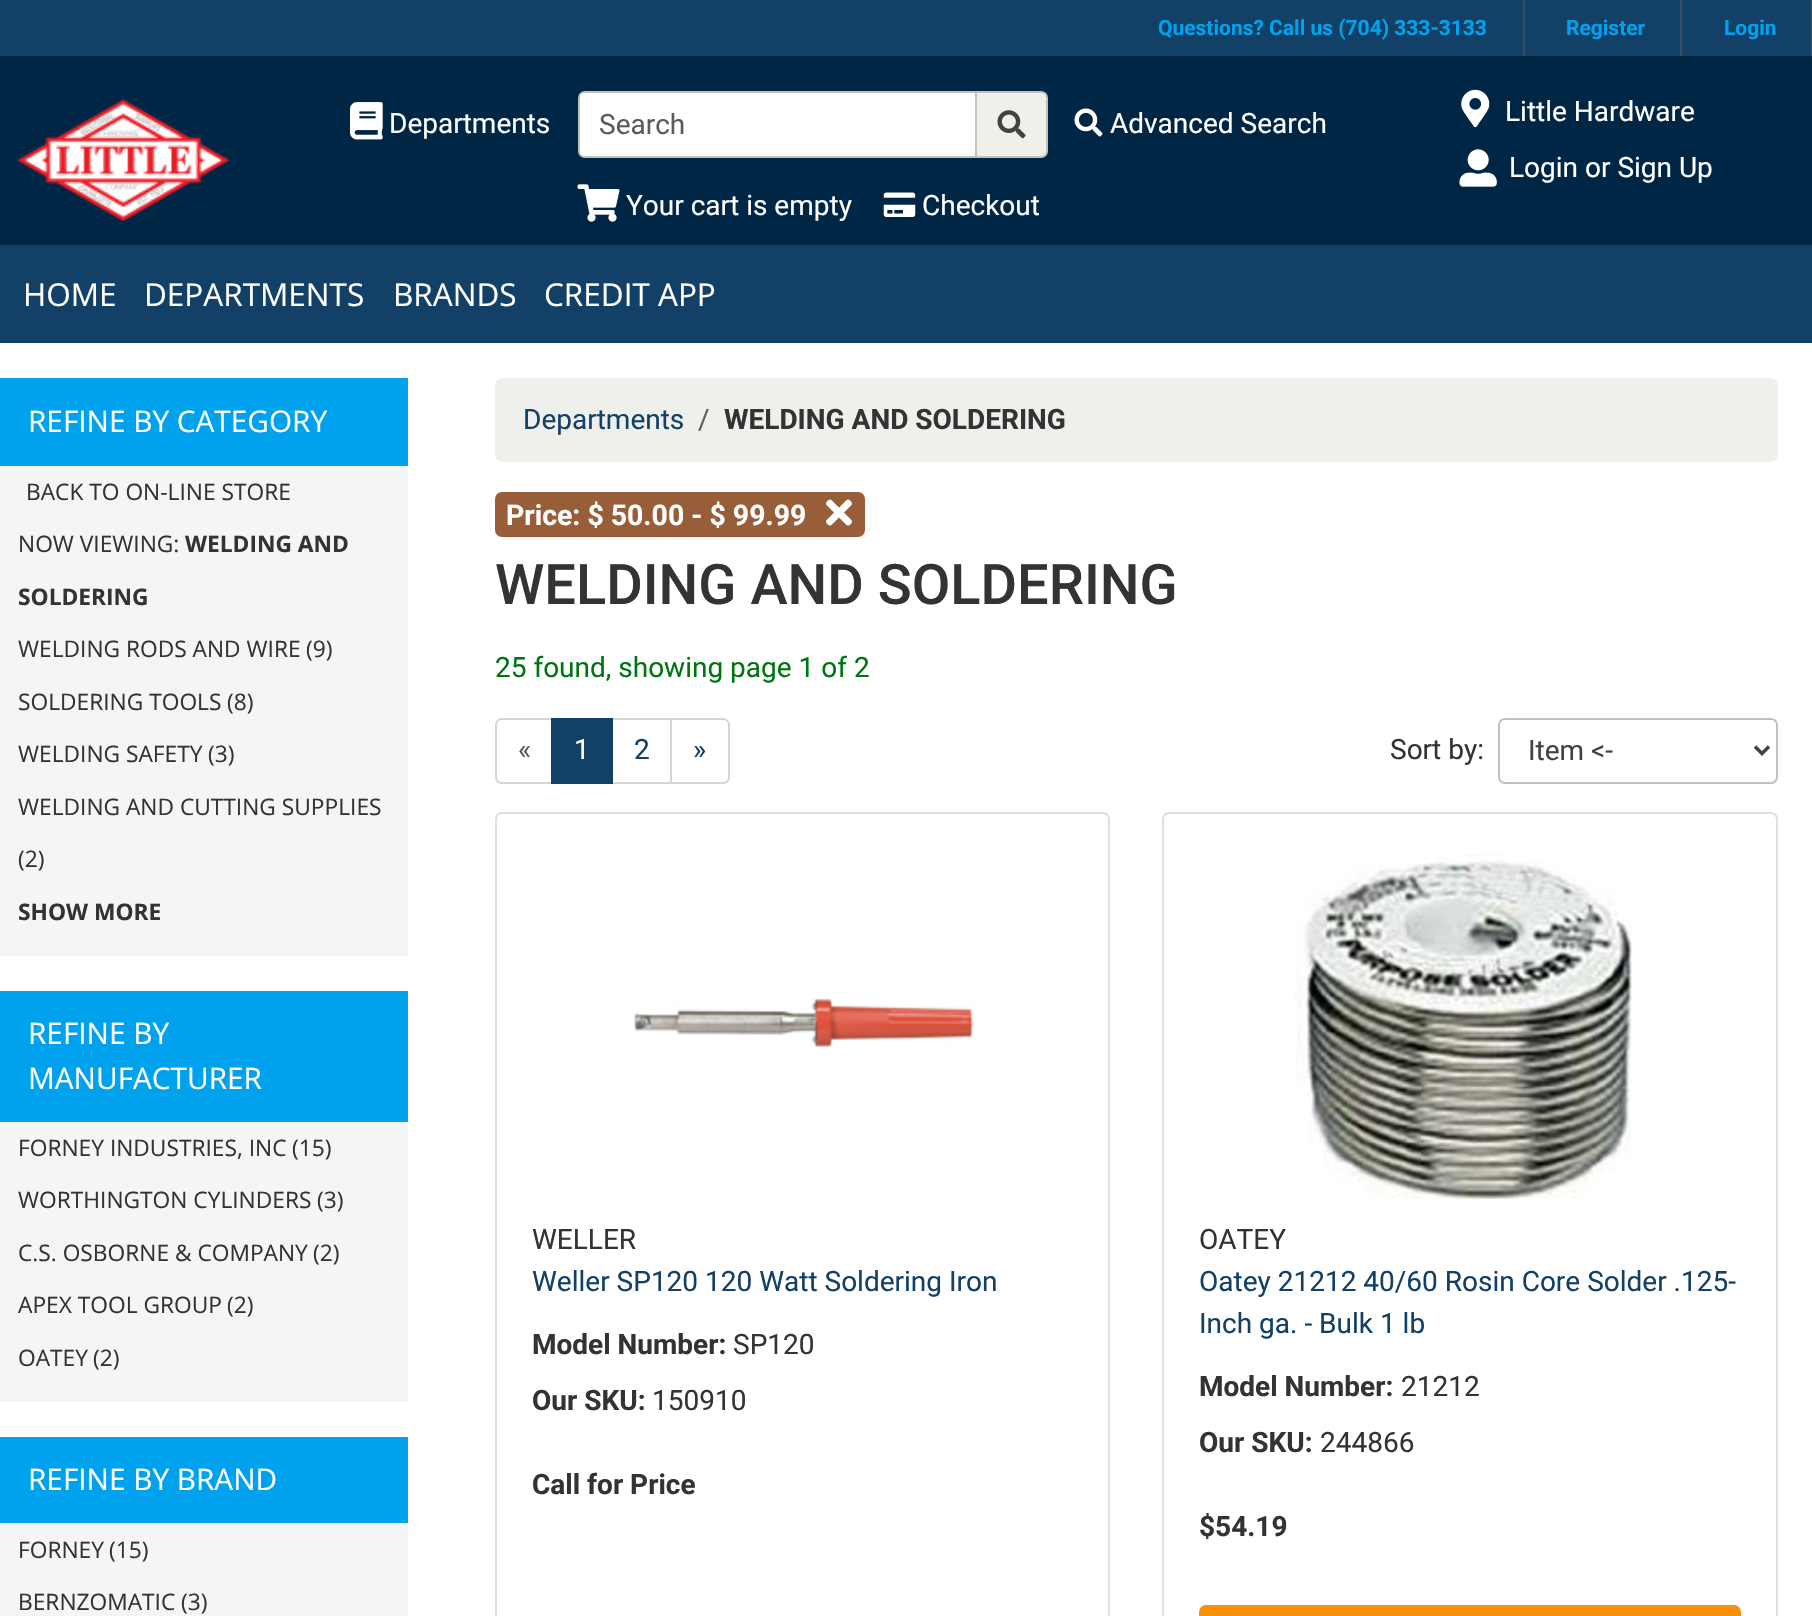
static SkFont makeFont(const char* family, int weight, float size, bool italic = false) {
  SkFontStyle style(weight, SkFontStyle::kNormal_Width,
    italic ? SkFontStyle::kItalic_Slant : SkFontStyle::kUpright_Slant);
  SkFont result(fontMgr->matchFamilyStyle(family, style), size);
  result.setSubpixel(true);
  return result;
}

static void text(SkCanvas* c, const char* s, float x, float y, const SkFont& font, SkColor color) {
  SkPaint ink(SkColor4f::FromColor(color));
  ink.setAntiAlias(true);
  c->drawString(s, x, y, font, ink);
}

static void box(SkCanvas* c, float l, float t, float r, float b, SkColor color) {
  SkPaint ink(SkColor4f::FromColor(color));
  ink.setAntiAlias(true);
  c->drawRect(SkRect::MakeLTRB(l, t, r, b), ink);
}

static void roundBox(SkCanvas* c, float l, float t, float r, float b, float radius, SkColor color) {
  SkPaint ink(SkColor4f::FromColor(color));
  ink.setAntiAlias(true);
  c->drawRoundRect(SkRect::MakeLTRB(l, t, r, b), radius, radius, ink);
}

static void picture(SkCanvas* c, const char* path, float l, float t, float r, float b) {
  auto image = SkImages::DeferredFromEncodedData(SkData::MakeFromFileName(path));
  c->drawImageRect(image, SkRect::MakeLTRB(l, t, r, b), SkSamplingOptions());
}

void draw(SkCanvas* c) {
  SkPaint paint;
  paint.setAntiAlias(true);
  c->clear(0xffffffff);
  box(c, 0, 0, 1811, 56, 0xff134067);
  box(c, 1523, 0, 1525, 56, 0xff3c4b5a);
  SkFont face1 = makeFont("Roboto", 700, 21);
  text(c, "Questions? Call us (704) 333-3133", 1158, 35, face1, 0xff00a2ee);
  box(c, 1680, 0, 1682, 56, 0xff3c4b5a);
  text(c, "Register", 1566, 35, face1, 0xff00a2ee);
  box(c, 1811, 0, 1812, 56, 0xff3c4b5a);
  text(c, "Login", 1724, 35, face1, 0xff00a2ee);
  box(c, 0, 56, 1812, 245, 0xff002646);
  picture(c, "img_01.png", 17, 99, 230, 221);
  picture(c, "img_02.png", 350, 102, 383, 140);
  SkFont face2 = makeFont("Roboto", 400, 28);
  text(c, "Departments", 389, 133, face2, 0xffffffff);
  paint.setColor(0xffffffff);
  c->drawPath(SkPathBuilder().moveTo(585, 92).lineTo(976, 92).lineTo(976, 157).lineTo(585, 157).cubicTo(581.5f, 157, 579, 154.5f, 579, 151).lineTo(579, 98).cubicTo(579, 94.5f, 581.5f, 92, 585, 92).close().detach(), paint);
  paint.setStyle(SkPaint::kStroke_Style);
  paint.setStrokeWidth(2);
  paint.setColor(0xffc1c2bc);
  c->drawPath(SkPathBuilder().moveTo(585, 92).lineTo(976, 92).lineTo(976, 157).lineTo(585, 157).cubicTo(581.5f, 157, 579, 154.5f, 579, 151).lineTo(579, 98).cubicTo(579, 94.5f, 581.5f, 92, 585, 92).close().detach(), paint);
  text(c, "Search", 599, 134, face2, 0xff5b5d55);
  paint.setStyle(SkPaint::kFill_Style);
  paint.setColor(0xffeff0ec);
  c->drawPath(SkPathBuilder().moveTo(976, 92).lineTo(1041, 92).cubicTo(1044.5f, 92, 1047, 94.5f, 1047, 98).lineTo(1047, 151).cubicTo(1047, 154.5f, 1044.5f, 157, 1041, 157).lineTo(976, 157).close().detach(), paint);
  paint.setStyle(SkPaint::kStroke_Style);
  paint.setColor(0xffc1c2bc);
  c->drawPath(SkPathBuilder().moveTo(976, 92).lineTo(1041, 92).cubicTo(1044.5f, 92, 1047, 94.5f, 1047, 98).lineTo(1047, 151).cubicTo(1047, 154.5f, 1044.5f, 157, 1041, 157).lineTo(976, 157).close().detach(), paint);
  picture(c, "img_03.png", 997, 110, 1026, 139);
  picture(c, "img_04.png", 1074, 108, 1103, 137);
  text(c, "Advanced Search", 1110, 133, face2, 0xffffffff);
  picture(c, "img_05.png", 577, 184, 620, 222);
  text(c, "Your cart is empty", 626, 215, face2, 0xffffffff);
  picture(c, "img_06.png", 883, 192, 916, 217);
  text(c, "Checkout", 922, 215, face2, 0xffffffff);
  picture(c, "img_07.png", 1461, 89, 1490, 128);
  text(c, "Little Hardware", 1505, 121, face2, 0xffffffff);
  picture(c, "img_08.png", 1459, 149, 1497, 187);
  text(c, "Login or Sign Up", 1509, 177, face2, 0xffffffff);
  box(c, 0, 245, 1812, 343, 0xff134067);
  SkFont face3 = makeFont("Open Sans", 400, 31.5f);
  text(c, "HOME", 23, 306, face3, 0xffffffff);
  text(c, "DEPARTMENTS", 144, 306, face3, 0xffffffff);
  text(c, "BRANDS", 393, 306, face3, 0xffffffff);
  text(c, "CREDIT APP", 544, 306, face3, 0xffffffff);
  box(c, 0, 378, 408, 466, 0xff00a2ee);
  SkFont face4 = makeFont("Open Sans", 400, 29.75f);
  text(c, "REFINE BY CATEGORY", 28, 432, face4, 0xffffffff);
  box(c, 0, 466, 408, 956, 0xfff3f5f7);
  SkFont face5 = makeFont("Open Sans", 400, 22.75f);
  text(c, "BACK TO ON-LINE STORE", 26, 500, face5, 0xff333333);
  text(c, "NOW VIEWING:", 18, 552, face5, 0xff333333);
  SkFont face6 = makeFont("Open Sans", 700, 22.75f);
  text(c, "WELDING AND", 185, 552, face6, 0xff333333);
  text(c, "SOLDERING", 18, 605, face6, 0xff333333);
  text(c, "WELDING RODS AND WIRE", 18, 657, face5, 0xff333333);
  text(c, "(9)", 306, 657, face5, 0xff333333);
  text(c, "SOLDERING TOOLS", 18, 710, face5, 0xff333333);
  text(c, "(8)", 227, 710, face5, 0xff333333);
  text(c, "WELDING SAFETY", 18, 762, face5, 0xff333333);
  text(c, "(3)", 208, 762, face5, 0xff333333);
  text(c, "WELDING AND CUTTING SUPPLIES", 18, 815, face5, 0xff333333);
  text(c, "(2)", 18, 867, face5, 0xff333333);
  text(c, "SHOW MORE", 18, 920, face6, 0xff333333);
  box(c, 0, 991, 408, 1122, 0xff00a2ee);
  text(c, "REFINE BY", 28, 1044, face4, 0xffffffff);
  text(c, "MANUFACTURER", 28, 1089, face4, 0xffffffff);
  box(c, 0, 1122, 408, 1402, 0xfff3f5f7);
  text(c, "FORNEY INDUSTRIES, INC", 18, 1156, face5, 0xff333333);
  text(c, "(15)", 292, 1156, face5, 0xff333333);
  text(c, "WORTHINGTON CYLINDERS", 18, 1208, face5, 0xff333333);
  text(c, "(3)", 317, 1208, face5, 0xff333333);
  text(c, "C.S. OSBORNE & COMPANY", 18, 1261, face5, 0xff333333);
  text(c, "(2)", 313, 1261, face5, 0xff333333);
  text(c, "APEX TOOL GROUP", 18, 1313, face5, 0xff333333);
  text(c, "(2)", 227, 1313, face5, 0xff333333);
  text(c, "OATEY", 18, 1366, face5, 0xff333333);
  text(c, "(2)", 93, 1366, face5, 0xff333333);
  box(c, 0, 1437, 408, 1523, 0xff00a2ee);
  text(c, "REFINE BY BRAND", 28, 1490, face4, 0xffffffff);
  box(c, 0, 1523, 408, 1616, 0xfff3f5f7);
  text(c, "FORNEY", 18, 1558, face5, 0xff333333);
  text(c, "(15)", 109, 1558, face5, 0xff333333);
  text(c, "BERNZOMATIC", 18, 1610, face5, 0xff333333);
  text(c, "(3)", 181, 1610, face5, 0xff333333);
  roundBox(c, 495, 378, 1778, 462, 7, 0xffeff0ec);
  text(c, "Departments", 523, 429, face2, 0xff134067);
  text(c, "/", 698, 429, face2, 0xff5b5d55);
  SkFont face7 = makeFont("Roboto", 700, 28);
  text(c, "WELDING AND SOLDERING", 724, 429, face7, 0xff333333);
  roundBox(c, 495, 492, 865, 537, 7, 0xff975e39);
  SkFont face8 = makeFont("Roboto", 700, 28.4f);
  text(c, "Price: $ 50.00 - $ 99.99", 506, 525, face8, 0xffffffff);
  picture(c, "img_09.png", 826, 499, 852, 526);
  SkFont face9 = makeFont("Roboto", 500, 56);
  text(c, "WELDING AND SOLDERING", 495, 604, face9, 0xff333333);
  text(c, "25 found, showing page 1 of 2", 495, 677, face2, 0xff007412);
  paint.setColor(0xffd5d6d2);
  c->drawPath(SkPathBuilder().moveTo(502, 719).lineTo(552, 719).lineTo(552, 783).lineTo(502, 783).cubicTo(498.5f, 783, 496, 780.5f, 496, 777).lineTo(496, 725).cubicTo(496, 721.5f, 498.5f, 719, 502, 719).close().detach(), paint);
  text(c, "«", 518, 759, face2, 0xff5b5d55);
  c->drawRect(SkRect::MakeLTRB(612, 719, 671, 783), paint);
  box(c, 551, 718, 613, 784, 0xff134067);
  text(c, "1", 574, 759, face2, 0xffffffff);
  text(c, "2", 634, 759, face2, 0xff134067);
  paint.setStyle(SkPaint::kFill_Style);
  paint.setColor(0xffffffff);
  c->drawPath(SkPathBuilder().moveTo(671, 719).lineTo(723, 719).cubicTo(726.5f, 719, 729, 721.5f, 729, 725).lineTo(729, 777).cubicTo(729, 780.5f, 726.5f, 783, 723, 783).lineTo(671, 783).close().detach(), paint);
  paint.setStyle(SkPaint::kStroke_Style);
  paint.setColor(0xffd5d6d2);
  c->drawPath(SkPathBuilder().moveTo(671, 719).lineTo(723, 719).cubicTo(726.5f, 719, 729, 721.5f, 729, 725).lineTo(729, 777).cubicTo(729, 780.5f, 726.5f, 783, 723, 783).lineTo(671, 783).close().detach(), paint);
  text(c, "»", 693, 759, face2, 0xff134067);
  text(c, "Sort by:", 1390, 759, face2, 0xff333333);
  paint.setColor(0xffc1c2bc);
  c->drawRoundRect(SkRect::MakeLTRB(1499, 719, 1777, 783), 6, 6, paint);
  paint.setStrokeWidth(3.5f);
  paint.setColor(0xff41433d);
  c->drawPath(SkPathBuilder().moveTo(1755, 746.5f).lineTo(1762, 753.5f).lineTo(1769, 746.5f).detach(), paint);
  text(c, "Item <-", 1528, 760, face2, 0xff41433d);
  paint.setStrokeWidth(2);
  paint.setColor(0xffdfdfdf);
  c->drawRoundRect(SkRect::MakeLTRB(496, 813, 1109, 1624), 6, 6, paint);
  picture(c, "img_10.png", 633, 998, 974, 1047);
  text(c, "WELLER", 532, 1249, face2, 0xff333333);
  text(c, "Weller SP120 120 Watt Soldering Iron", 532, 1291, face2, 0xff134067);
  text(c, "Model Number:", 532, 1354, face7, 0xff333333);
  text(c, "SP120", 733, 1354, face2, 0xff333333);
  text(c, "Our SKU:", 532, 1410, face7, 0xff333333);
  text(c, "150910", 652, 1410, face2, 0xff333333);
  text(c, "Call for Price", 532, 1494, face7, 0xff333333);
  c->drawRoundRect(SkRect::MakeLTRB(1163, 813, 1777, 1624), 6, 6, paint);
  picture(c, "img_11.png", 1295, 854, 1632, 1199);
  text(c, "OATEY", 1199, 1249, face2, 0xff333333);
  text(c, "Oatey 21212 40/60 Rosin Core Solder .125-", 1199, 1291, face2, 0xff134067);
  text(c, "Inch ga. - Bulk 1 lb", 1199, 1333, face2, 0xff134067);
  text(c, "Model Number:", 1199, 1396, face7, 0xff333333);
  text(c, "21212", 1401, 1396, face2, 0xff333333);
  text(c, "Our SKU:", 1199, 1452, face7, 0xff333333);
  text(c, "244866", 1320, 1452, face2, 0xff333333);
  text(c, "$54.19", 1199, 1536, face7, 0xff333333);
  paint.setStyle(SkPaint::kFill_Style);
  paint.setColor(0xfff99106);
  c->drawRoundRect(SkRect::MakeLTRB(1200, 1606, 1740, 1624), 6, 6, paint);
  paint.setStyle(SkPaint::kStroke_Style);
  c->drawRoundRect(SkRect::MakeLTRB(1200, 1606, 1740, 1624), 6, 6, paint);
}
